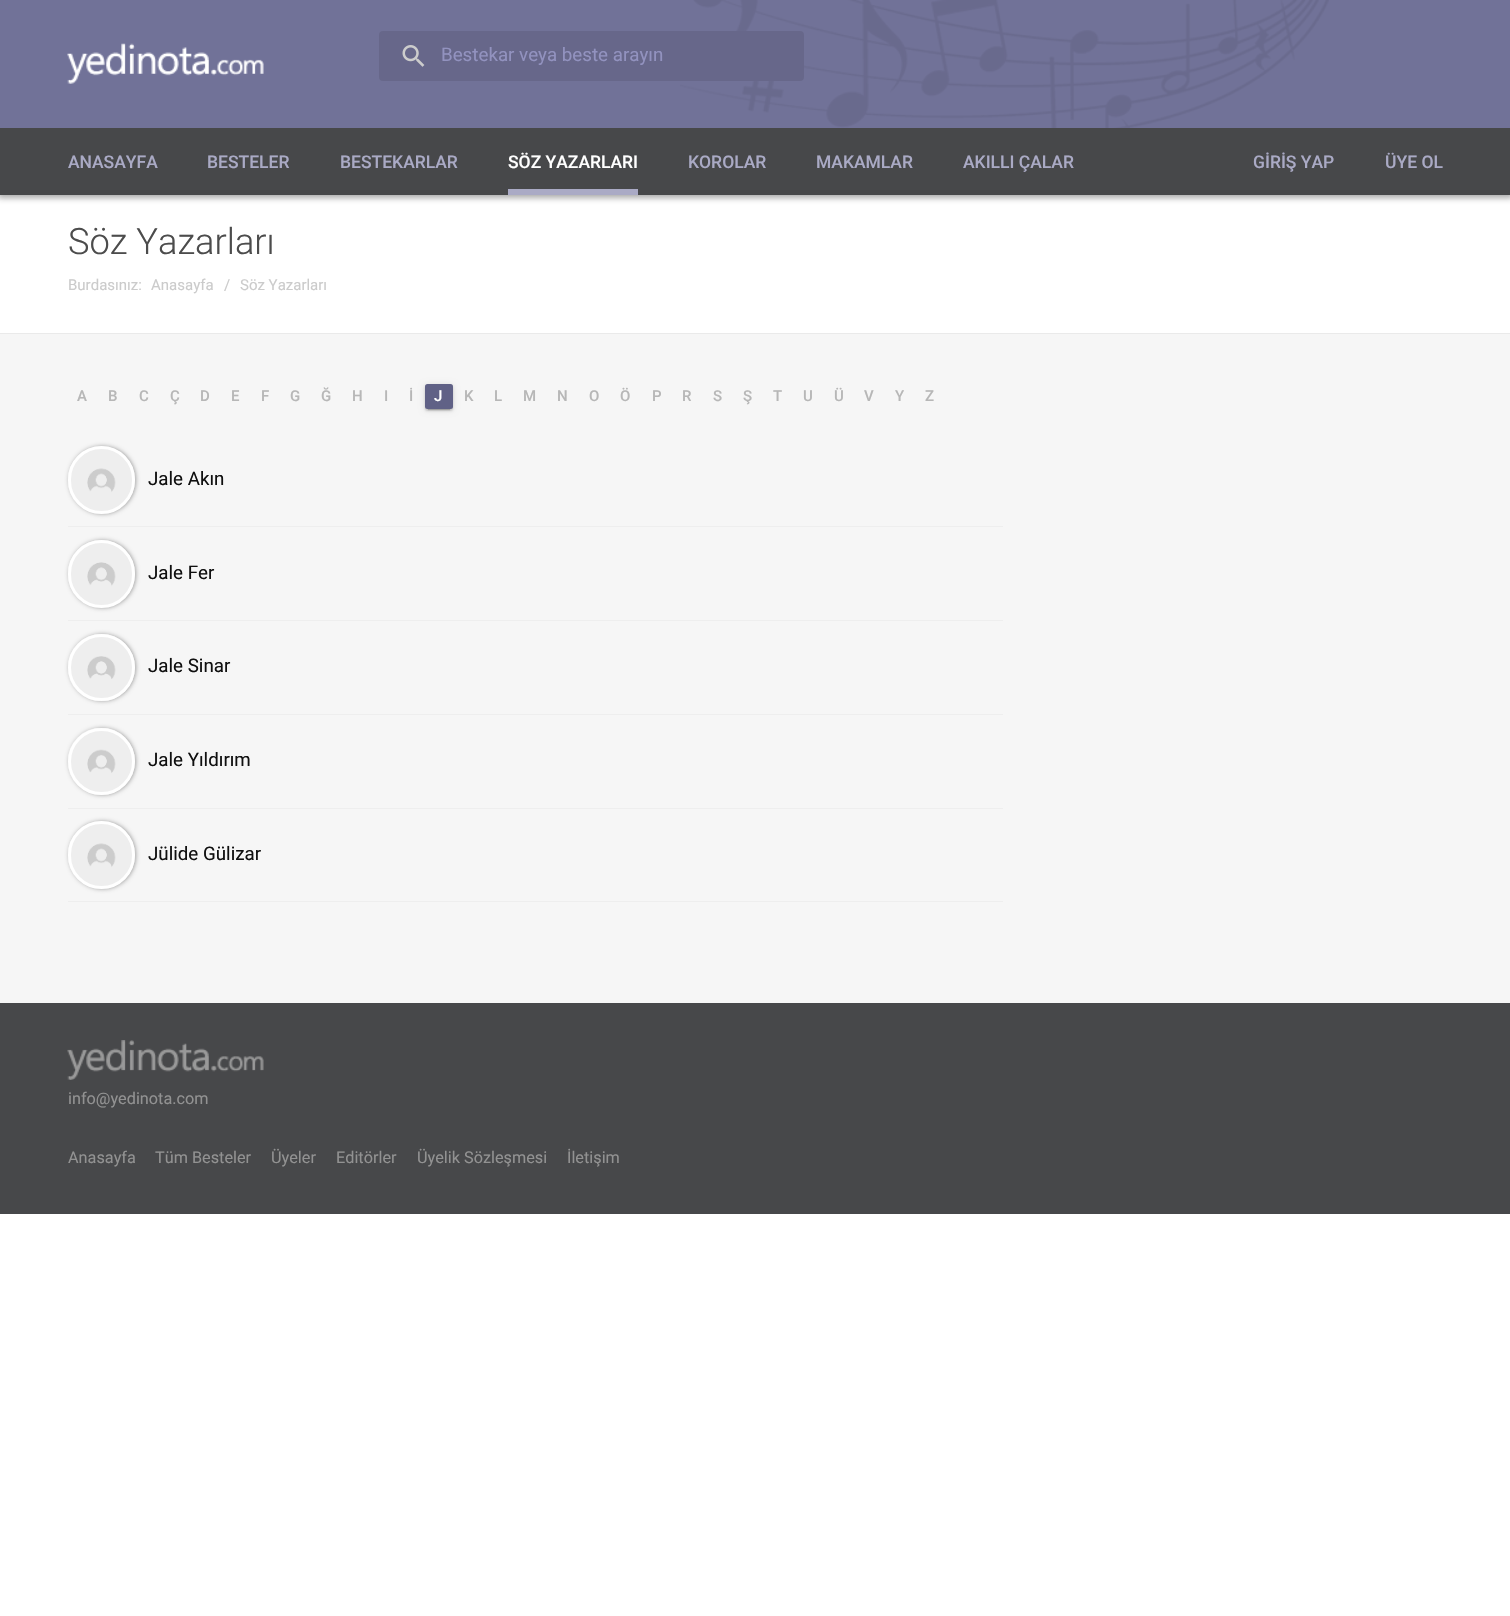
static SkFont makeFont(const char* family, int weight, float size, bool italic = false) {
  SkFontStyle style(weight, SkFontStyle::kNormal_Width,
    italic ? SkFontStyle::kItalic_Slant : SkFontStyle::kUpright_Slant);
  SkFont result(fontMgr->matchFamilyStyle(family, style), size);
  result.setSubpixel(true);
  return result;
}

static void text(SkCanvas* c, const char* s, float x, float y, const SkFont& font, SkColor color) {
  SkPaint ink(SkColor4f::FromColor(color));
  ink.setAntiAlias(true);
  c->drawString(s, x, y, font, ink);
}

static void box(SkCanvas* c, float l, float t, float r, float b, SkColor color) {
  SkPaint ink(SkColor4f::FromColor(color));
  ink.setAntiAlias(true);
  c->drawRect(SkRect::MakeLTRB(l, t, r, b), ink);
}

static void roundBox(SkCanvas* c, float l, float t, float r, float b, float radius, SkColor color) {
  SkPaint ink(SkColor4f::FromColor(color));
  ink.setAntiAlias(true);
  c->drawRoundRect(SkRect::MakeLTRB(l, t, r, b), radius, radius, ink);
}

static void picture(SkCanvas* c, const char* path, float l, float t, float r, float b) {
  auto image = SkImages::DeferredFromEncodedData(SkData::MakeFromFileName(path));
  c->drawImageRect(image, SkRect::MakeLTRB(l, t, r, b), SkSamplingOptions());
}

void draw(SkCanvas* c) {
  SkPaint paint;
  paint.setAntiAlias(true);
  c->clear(0xffffffff);
  paint.setColor(0x611d1d1d);
  paint.setMaskFilter(SkMaskFilter::MakeBlur(kNormal_SkBlurStyle, 3));
  c->drawRect(SkRect::MakeLTRB(-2, -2, 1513, 198), paint);
  paint.setMaskFilter(nullptr);
  box(c, 0, 0, 1510, 128, 0xff717298);
  picture(c, "img_01.png", 680, 0, 1329, 128);
  picture(c, "img_02.png", 67, 43, 264, 84);
  roundBox(c, 379, 31, 804, 81, 4, 0xff67678a);
  picture(c, "img_03.png", 402, 45, 425, 67);
  SkFont face1 = makeFont("Roboto", 400, 18.75f);
  text(c, "Bestekar veya beste arayın", 441, 61, face1, 0xff9292bf);
  box(c, 0, 128, 1510, 195, 0xff47484a);
  SkFont face2 = makeFont("Roboto", 500, 17.5f);
  text(c, "ANASAYFA", 68, 168, face2, 0xffaaaac5);
  text(c, "BESTELER", 207, 168, face2, 0xffaaaac5);
  text(c, "BESTEKARLAR", 340, 168, face2, 0xffaaaac5);
  box(c, 508, 189, 638, 195, 0xffaaaac5);
  text(c, "SÖZ YAZARLARI", 508, 168, face2, 0xffffffff);
  text(c, "KOROLAR", 688, 168, face2, 0xffaaaac5);
  text(c, "MAKAMLAR", 816, 168, face2, 0xffaaaac5);
  text(c, "AKILLI ÇALAR", 963, 168, face2, 0xffaaaac5);
  text(c, "GİRİŞ YAP", 1253, 168, face2, 0xffaaaac5);
  text(c, "ÜYE OL", 1385, 168, face2, 0xffaaaac5);
  box(c, 0, 334, 1510, 1003, 0xfff6f6f6);
  box(c, 0, 333, 1510, 334, 0xffeaeaea);
  SkFont face3 = makeFont("Roboto", 300, 36.25f);
  text(c, "Söz Yazarları", 68, 254, face3, 0xff4c4c4c);
  SkFont face4 = makeFont("Roboto", 400, 15);
  text(c, "Burdasınız:", 68, 290, face4, 0xffcbcbcb);
  text(c, "Anasayfa", 151, 290, face4, 0xffcbcbcb);
  text(c, "/", 224, 290, face4, 0xffcbcbcb);
  text(c, "Söz Yazarları", 240, 290, face4, 0xffcbcbcb);
  SkFont face5 = makeFont("Roboto", 500, 15);
  text(c, "A", 77, 401, face5, 0xffb7b7b7);
  text(c, "B", 108, 401, face5, 0xffb7b7b7);
  text(c, "C", 139, 401, face5, 0xffb7b7b7);
  text(c, "Ç", 170, 401, face5, 0xffb7b7b7);
  text(c, "D", 200, 401, face5, 0xffb7b7b7);
  text(c, "E", 231, 401, face5, 0xffb7b7b7);
  text(c, "F", 261, 401, face5, 0xffb7b7b7);
  text(c, "G", 290, 401, face5, 0xffb7b7b7);
  text(c, "Ğ", 321, 401, face5, 0xffb7b7b7);
  text(c, "H", 352, 401, face5, 0xffb7b7b7);
  text(c, "I", 384, 401, face5, 0xffb7b7b7);
  text(c, "İ", 409, 401, face5, 0xffb7b7b7);
  paint.setColor(0x1f000000);
  paint.setMaskFilter(SkMaskFilter::MakeBlur(kNormal_SkBlurStyle, 3));
  c->drawRoundRect(SkRect::MakeLTRB(425, 385, 453, 410), 2.5f, 2.5f, paint);
  paint.setMaskFilter(nullptr);
  paint.setColor(0x33000000);
  paint.setMaskFilter(SkMaskFilter::MakeBlur(kNormal_SkBlurStyle, 0.5f));
  c->drawRect(SkRect::MakeLTRB(428, 390, 450, 410), paint);
  paint.setMaskFilter(nullptr);
  paint.setColor(0x24000000);
  paint.setMaskFilter(SkMaskFilter::MakeBlur(kNormal_SkBlurStyle, 1));
  c->drawRoundRect(SkRect::MakeLTRB(425, 386, 453, 411), 2.5f, 2.5f, paint);
  paint.setMaskFilter(nullptr);
  roundBox(c, 425, 384, 453, 409, 2.5f, 0xff606186);
  text(c, "J", 434, 401, face5, 0xffffffff);
  text(c, "K", 464, 401, face5, 0xffb7b7b7);
  text(c, "L", 494, 401, face5, 0xffb7b7b7);
  text(c, "M", 523, 401, face5, 0xffb7b7b7);
  text(c, "N", 557, 401, face5, 0xffb7b7b7);
  text(c, "O", 589, 401, face5, 0xffb7b7b7);
  text(c, "Ö", 620, 401, face5, 0xffb7b7b7);
  text(c, "P", 652, 401, face5, 0xffb7b7b7);
  text(c, "R", 682, 401, face5, 0xffb7b7b7);
  text(c, "S", 713, 401, face5, 0xffb7b7b7);
  text(c, "Ş", 743, 401, face5, 0xffb7b7b7);
  text(c, "T", 773, 401, face5, 0xffb7b7b7);
  text(c, "U", 803, 401, face5, 0xffb7b7b7);
  text(c, "Ü", 834, 401, face5, 0xffb7b7b7);
  text(c, "V", 864, 401, face5, 0xffb7b7b7);
  text(c, "Y", 895, 401, face5, 0xffb7b7b7);
  text(c, "Z", 925, 401, face5, 0xffb7b7b7);
  box(c, 68, 526, 1003, 527, 0xffeeeeee);
  paint.setColor(0x59000000);
  paint.setMaskFilter(SkMaskFilter::MakeBlur(kNormal_SkBlurStyle, 2));
  c->drawRoundRect(SkRect::MakeLTRB(69, 446, 136, 514), 33.5f, 33.5f, paint);
  paint.setMaskFilter(nullptr);
  picture(c, "img_04.png", 68, 446, 135, 514);
  paint.setStyle(SkPaint::kStroke_Style);
  paint.setStrokeWidth(3);
  paint.setColor(0xffffffff);
  c->drawRoundRect(SkRect::MakeLTRB(69.5f, 447.5f, 133.5f, 512.5f), 32, 32, paint);
  text(c, "Jale Akın", 148, 485, face1, 0xff101010);
  box(c, 68, 620, 1003, 621, 0xffeeeeee);
  paint.setStyle(SkPaint::kFill_Style);
  paint.setColor(0x59000000);
  paint.setMaskFilter(SkMaskFilter::MakeBlur(kNormal_SkBlurStyle, 2));
  c->drawRoundRect(SkRect::MakeLTRB(69, 540, 136, 608), 33.5f, 33.5f, paint);
  paint.setMaskFilter(nullptr);
  picture(c, "img_05.png", 68, 540, 135, 608);
  paint.setStyle(SkPaint::kStroke_Style);
  paint.setColor(0xffffffff);
  c->drawRoundRect(SkRect::MakeLTRB(69.5f, 541.5f, 133.5f, 606.5f), 32, 32, paint);
  text(c, "Jale Fer", 148, 579, face1, 0xff101010);
  box(c, 68, 714, 1003, 715, 0xffeeeeee);
  paint.setStyle(SkPaint::kFill_Style);
  paint.setColor(0x59000000);
  paint.setMaskFilter(SkMaskFilter::MakeBlur(kNormal_SkBlurStyle, 2));
  c->drawRoundRect(SkRect::MakeLTRB(69, 634, 136, 701), 33.5f, 33.5f, paint);
  paint.setMaskFilter(nullptr);
  picture(c, "img_06.png", 68, 634, 135, 701);
  paint.setStyle(SkPaint::kStroke_Style);
  paint.setColor(0xffffffff);
  c->drawCircle(101.5f, 667.5f, 32, paint);
  text(c, "Jale Sinar", 148, 672, face1, 0xff101010);
  box(c, 68, 808, 1003, 809, 0xffeeeeee);
  paint.setStyle(SkPaint::kFill_Style);
  paint.setColor(0x59000000);
  paint.setMaskFilter(SkMaskFilter::MakeBlur(kNormal_SkBlurStyle, 2));
  c->drawRoundRect(SkRect::MakeLTRB(69, 728, 136, 795), 33.5f, 33.5f, paint);
  paint.setMaskFilter(nullptr);
  picture(c, "img_07.png", 68, 728, 135, 795);
  paint.setStyle(SkPaint::kStroke_Style);
  paint.setColor(0xffffffff);
  c->drawCircle(101.5f, 761.5f, 32, paint);
  text(c, "Jale Yıldırım", 148, 766, face1, 0xff101010);
  box(c, 68, 901, 1003, 902, 0xffeeeeee);
  paint.setStyle(SkPaint::kFill_Style);
  paint.setColor(0x59000000);
  paint.setMaskFilter(SkMaskFilter::MakeBlur(kNormal_SkBlurStyle, 2));
  c->drawRoundRect(SkRect::MakeLTRB(69, 821, 136, 889), 33.5f, 33.5f, paint);
  paint.setMaskFilter(nullptr);
  picture(c, "img_08.png", 68, 821, 135, 889);
  paint.setStyle(SkPaint::kStroke_Style);
  paint.setColor(0xffffffff);
  c->drawRoundRect(SkRect::MakeLTRB(69.5f, 822.5f, 133.5f, 887.5f), 32, 32, paint);
  text(c, "Jülide Gülizar", 148, 860, face1, 0xff101010);
  box(c, 0, 1003, 1510, 1214, 0xff47484a);
  picture(c, "img_09.png", 67, 1040, 264, 1080);
  SkFont face6 = makeFont("Roboto", 400, 16.25f);
  text(c, "info@yedinota.com", 68, 1104, face6, 0xff929292);
  text(c, "Anasayfa", 68, 1163, face6, 0xff929292);
  text(c, "Tüm Besteler", 155, 1163, face6, 0xff929292);
  text(c, "Üyeler", 271, 1163, face6, 0xff929292);
  text(c, "Editörler", 336, 1163, face6, 0xff929292);
  text(c, "Üyelik Sözleşmesi", 417, 1163, face6, 0xff929292);
  text(c, "İletişim", 567, 1163, face6, 0xff929292);
}
